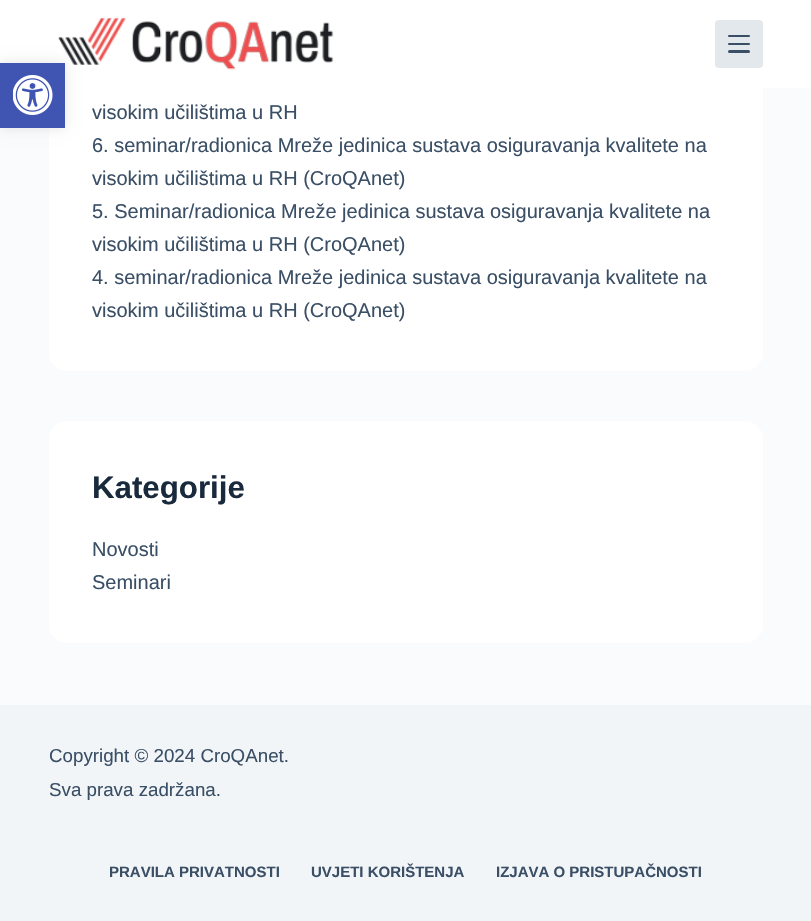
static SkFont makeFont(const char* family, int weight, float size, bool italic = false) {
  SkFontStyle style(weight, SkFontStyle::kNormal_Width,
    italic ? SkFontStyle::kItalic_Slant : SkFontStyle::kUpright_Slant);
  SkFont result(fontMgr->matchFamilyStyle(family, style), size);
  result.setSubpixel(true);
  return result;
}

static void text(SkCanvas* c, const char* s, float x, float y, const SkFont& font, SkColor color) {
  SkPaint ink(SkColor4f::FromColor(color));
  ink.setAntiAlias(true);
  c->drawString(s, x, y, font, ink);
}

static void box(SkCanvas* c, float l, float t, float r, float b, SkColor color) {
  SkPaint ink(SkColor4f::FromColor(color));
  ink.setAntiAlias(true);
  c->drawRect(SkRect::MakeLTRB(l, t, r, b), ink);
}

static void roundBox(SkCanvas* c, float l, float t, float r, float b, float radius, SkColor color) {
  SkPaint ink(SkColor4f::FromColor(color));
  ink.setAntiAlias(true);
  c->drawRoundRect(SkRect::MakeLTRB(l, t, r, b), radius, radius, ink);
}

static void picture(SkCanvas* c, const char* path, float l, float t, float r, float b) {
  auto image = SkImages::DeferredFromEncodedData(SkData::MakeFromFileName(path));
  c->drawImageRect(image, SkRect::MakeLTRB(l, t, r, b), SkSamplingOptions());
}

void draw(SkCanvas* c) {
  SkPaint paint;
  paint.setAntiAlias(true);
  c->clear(0xfffafbfc);
  roundBox(c, 49, -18, 763, 371, 18, 0xffffffff);
  box(c, 0, 0, 811, 88, 0xffffffff);
  picture(c, "img_02.png", 58, 18, 334, 70);
  paint.setColor(0x1a000000);
  paint.setMaskFilter(SkMaskFilter::MakeBlur(kNormal_SkBlurStyle, 6));
  c->drawRect(SkRect::MakeLTRB(0, 63, 65, 128), paint);
  paint.setMaskFilter(nullptr);
  box(c, 0, 63, 65, 128, 0xff4054b2);
  picture(c, "img_01.png", 13, 75, 53, 115);
  roundBox(c, 715, 20, 763, 68, 4, 0xffe3e8ed);
  roundBox(c, 728, 35, 750, 37, 1, 0xff3a4f66);
  roundBox(c, 728, 43, 750, 45, 1, 0xff3a4f66);
  roundBox(c, 728, 50, 750, 53, 1.5f, 0xff3a4f66);
  SkFont face1 = makeFont("Liberation Sans", 400, 20);
  text(c, "visokim učilištima u RH", 92, 119, face1, 0xff3a4f66);
  text(c, "6. seminar/radionica Mreže jedinica sustava osiguravanja kvalitete na", 92, 152, face1, 0xff3a4f66);
  text(c, "visokim učilištima u RH (CroQAnet)", 92, 185, face1, 0xff3a4f66);
  text(c, "5. Seminar/radionica Mreže jedinica sustava osiguravanja kvalitete na", 92, 218, face1, 0xff3a4f66);
  text(c, "visokim učilištima u RH (CroQAnet)", 92, 251, face1, 0xff3a4f66);
  text(c, "4. seminar/radionica Mreže jedinica sustava osiguravanja kvalitete na", 92, 284, face1, 0xff3a4f66);
  text(c, "visokim učilištima u RH (CroQAnet)", 92, 317, face1, 0xff3a4f66);
  roundBox(c, 49, 421, 763, 643, 18, 0xffffffff);
  SkFont face2 = makeFont("Liberation Sans", 700, 31.25f);
  text(c, "Kategorije", 92, 498, face2, 0xff192a3d);
  text(c, "Novosti", 92, 556, face1, 0xff3a4f66);
  text(c, "Seminari", 92, 589, face1, 0xff3a4f66);
  box(c, 0, 705, 811, 921, 0xfff2f5f7);
  SkFont face3 = makeFont("Liberation Sans", 400, 18.75f);
  text(c, "Copyright © 2024 CroQAnet.", 49, 762, face3, 0xff3a4f66);
  text(c, "Sva prava zadržana.", 49, 796, face3, 0xff3a4f66);
  SkFont face4 = makeFont("Liberation Sans", 700, 15);
  text(c, "PRAVILA PRIVATNOSTI", 109, 877, face4, 0xff3a4f66);
  text(c, "UVJETI KORIŠTENJA", 311, 877, face4, 0xff3a4f66);
  text(c, "IZJAVA O PRISTUPAČNOSTI", 496, 877, face4, 0xff3a4f66);
}
